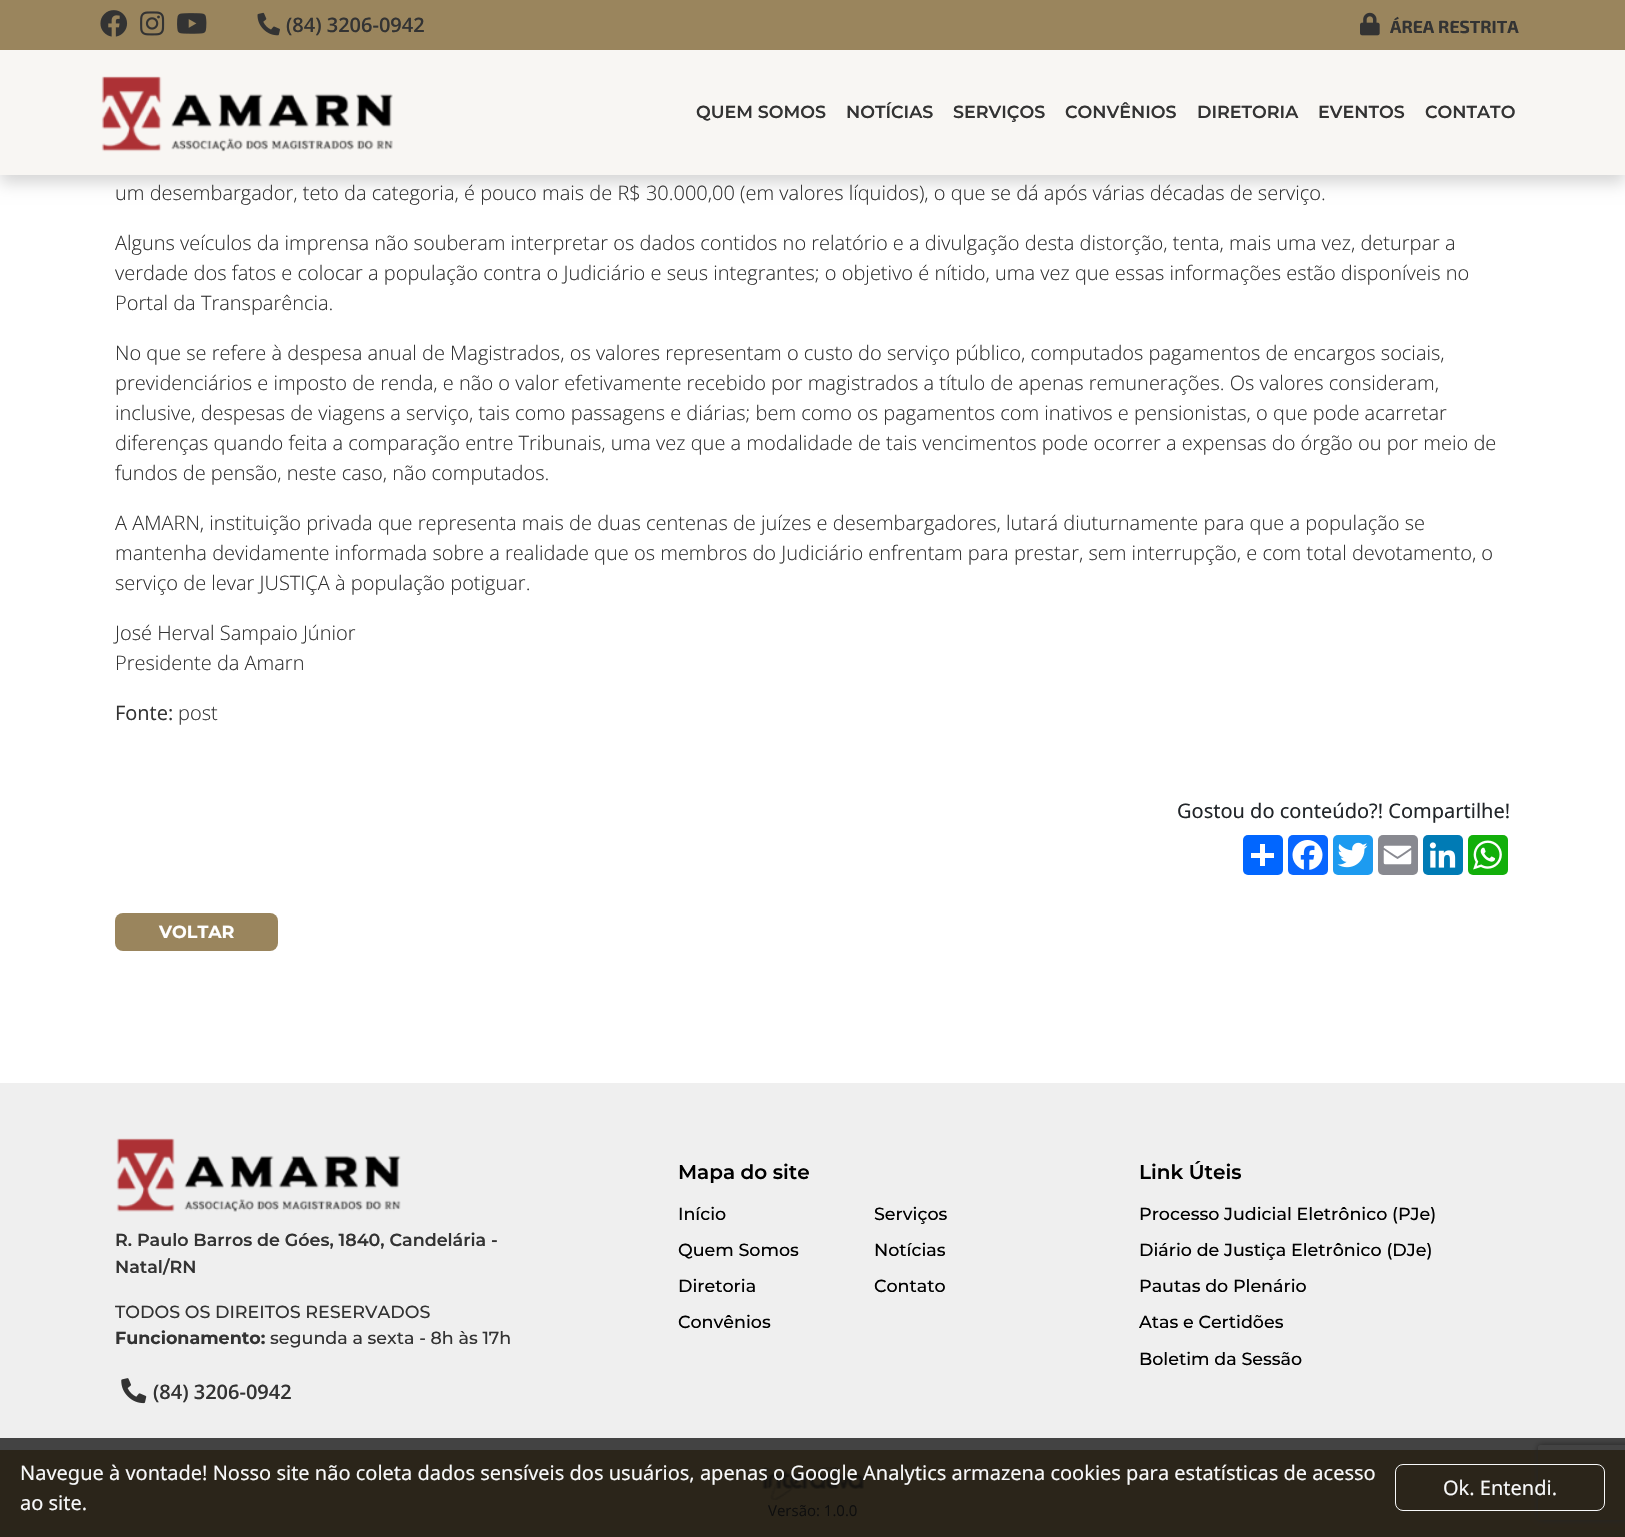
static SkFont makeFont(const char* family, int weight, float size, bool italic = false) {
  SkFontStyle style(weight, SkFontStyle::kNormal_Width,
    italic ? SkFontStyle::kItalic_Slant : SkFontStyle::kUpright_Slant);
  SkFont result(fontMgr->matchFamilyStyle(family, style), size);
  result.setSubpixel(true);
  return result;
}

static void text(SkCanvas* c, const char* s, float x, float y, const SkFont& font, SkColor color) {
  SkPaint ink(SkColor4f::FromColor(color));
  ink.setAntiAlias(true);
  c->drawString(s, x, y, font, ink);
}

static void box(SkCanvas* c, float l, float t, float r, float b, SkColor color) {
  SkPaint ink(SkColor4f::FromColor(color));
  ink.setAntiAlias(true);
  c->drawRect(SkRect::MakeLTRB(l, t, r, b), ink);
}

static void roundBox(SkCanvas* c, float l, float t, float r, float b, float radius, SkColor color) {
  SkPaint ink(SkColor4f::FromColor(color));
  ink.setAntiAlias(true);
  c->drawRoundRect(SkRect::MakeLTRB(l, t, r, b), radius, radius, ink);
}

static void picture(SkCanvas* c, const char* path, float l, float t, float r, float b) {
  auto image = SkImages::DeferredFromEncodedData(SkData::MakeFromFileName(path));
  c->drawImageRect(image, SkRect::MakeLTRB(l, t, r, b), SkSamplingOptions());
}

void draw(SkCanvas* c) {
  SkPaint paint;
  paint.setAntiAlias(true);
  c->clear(0xffffffff);
  paint.setColor(0x29000000);
  paint.setMaskFilter(SkMaskFilter::MakeBlur(kNormal_SkBlurStyle, 7.5f));
  c->drawRect(SkRect::MakeLTRB(0, 8, 1625, 183), paint);
  paint.setMaskFilter(nullptr);
  box(c, 0, 0, 1625, 50, 0xff9a855d);
  picture(c, "img_01.png", 100, 10, 128, 37);
  picture(c, "img_02.png", 140, 11, 165, 36);
  picture(c, "img_03.png", 177, 13, 207, 34);
  picture(c, "img_04.png", 257, 12, 280, 36);
  SkFont face1 = makeFont("Open Sans", 600, 20);
  text(c, "(84) 3206-0942", 286, 32, face1, 0xff333333);
  picture(c, "img_05.png", 1360, 12, 1380, 36);
  SkFont face2 = makeFont("Exo 2", 700, 17.5f);
  text(c, "ÁREA RESTRITA", 1390, 33, face2, 0xff333333);
  box(c, 0, 50, 1625, 175, 0xfff8f6f3);
  picture(c, "img_06.png", 101, 76, 393, 152);
  SkFont face3 = makeFont("Montserrat", 600, 17.5f);
  text(c, "QUEM SOMOS", 696, 118, face3, 0xff333333);
  text(c, "NOTÍCIAS", 846, 118, face3, 0xff333333);
  text(c, "SERVIÇOS", 953, 118, face3, 0xff333333);
  text(c, "CONVÊNIOS", 1065, 118, face3, 0xff333333);
  text(c, "DIRETORIA", 1197, 118, face3, 0xff333333);
  text(c, "EVENTOS", 1318, 118, face3, 0xff333333);
  text(c, "CONTATO", 1425, 118, face3, 0xff333333);
  SkFont face4 = makeFont("Open Sans", 300, 20);
  text(c, "um desembargador, teto da categoria, é pouco mais de R$ 30.000,00 (em valores líquidos), o que se dá após várias décadas de serviço.", 115, 200, face4, 0xff333333);
  text(c, "Alguns veículos da imprensa não souberam interpretar os dados contidos no relatório e a divulgação desta distorção, tenta, mais uma vez, deturpar a", 115, 250, face4, 0xff333333);
  text(c, "verdade dos fatos e colocar a população contra o Judiciário e seus integrantes; o objetivo é nítido, uma vez que essas informações estão disponíveis no", 115, 280, face4, 0xff333333);
  text(c, "Portal da Transparência.", 115, 310, face4, 0xff333333);
  text(c, "No que se refere à despesa anual de Magistrados, os valores representam o custo do serviço público, computados pagamentos de encargos sociais,", 115, 360, face4, 0xff333333);
  text(c, "previdenciários e imposto de renda, e não o valor efetivamente recebido por magistrados a título de apenas remunerações. Os valores consideram,", 115, 390, face4, 0xff333333);
  text(c, "inclusive, despesas de viagens a serviço, tais como passagens e diárias; bem como os pagamentos com inativos e pensionistas, o que pode acarretar", 115, 420, face4, 0xff333333);
  text(c, "diferenças quando feita a comparação entre Tribunais, uma vez que a modalidade de tais vencimentos pode ocorrer a expensas do órgão ou por meio de", 115, 450, face4, 0xff333333);
  text(c, "fundos de pensão, neste caso, não computados.", 115, 480, face4, 0xff333333);
  text(c, "A AMARN, instituição privada que representa mais de duas centenas de juízes e desembargadores, lutará diuturnamente para que a população se", 115, 530, face4, 0xff333333);
  text(c, "mantenha devidamente informada sobre a realidade que os membros do Judiciário enfrentam para prestar, sem interrupção, e com total devotamento, o", 115, 560, face4, 0xff333333);
  text(c, "serviço de levar JUSTIÇA à população potiguar.", 115, 590, face4, 0xff333333);
  text(c, "José Herval Sampaio Júnior", 115, 640, face4, 0xff333333);
  text(c, "Presidente da Amarn", 115, 670, face4, 0xff333333);
  SkFont face5 = makeFont("Open Sans", 400, 20);
  text(c, "Fonte:", 115, 720, face5, 0xff333333);
  text(c, "post", 178, 720, face4, 0xff333333);
  SkFont face6 = makeFont("Noto Sans", 400, 20);
  text(c, "Gostou do conteúdo?! Compartilhe!", 1177, 818, face6, 0xff212529);
  roundBox(c, 1243, 835, 1283, 875, 5, 0xff0166ff);
  box(c, 1260, 844, 1265, 866, 0xffffffff);
  box(c, 1251, 853, 1274, 858, 0xffffffff);
  roundBox(c, 1288, 835, 1328, 875, 5, 0xff0866ff);
  picture(c, "img_07.png", 1292, 840, 1323, 870);
  roundBox(c, 1333, 835, 1373, 875, 5, 0xff1d9bf0);
  picture(c, "img_08.png", 1337, 842, 1368, 868);
  roundBox(c, 1378, 835, 1418, 875, 5, 0xff888990);
  picture(c, "img_09.png", 1383, 845, 1412, 865);
  roundBox(c, 1423, 835, 1463, 875, 5, 0xff007bb5);
  picture(c, "img_10.png", 1429, 842, 1456, 868);
  roundBox(c, 1468, 835, 1508, 875, 5, 0xff12af0a);
  picture(c, "img_11.png", 1473, 840, 1502, 870);
  roundBox(c, 115, 913, 278, 951, 8, 0xff9a855d);
  SkFont face7 = makeFont("Montserrat", 700, 17.5f);
  text(c, "VOLTAR", 159, 938, face7, 0xffffffff);
  box(c, 0, 1083, 1625, 1438, 0xffefefef);
  box(c, 0, 1438, 1625, 1450, 0xff434343);
  picture(c, "img_12.png", 116, 1138, 401, 1212);
  text(c, "R. Paulo Barros de Góes, 1840, Candelária -", 115, 1246, face3, 0xff333333);
  text(c, "Natal/RN", 115, 1273, face3, 0xff333333);
  SkFont face8 = makeFont("Montserrat", 500, 17.5f);
  text(c, "TODOS OS DIREITOS RESERVADOS", 115, 1318, face8, 0xff333333);
  text(c, "Funcionamento:", 115, 1344, face7, 0xff333333);
  text(c, "segunda a sexta - 8h às 17h", 270, 1344, face8, 0xff333333);
  picture(c, "img_13.png", 121, 1378, 147, 1404);
  text(c, "(84) 3206-0942", 153, 1399, face1, 0xff333333);
  SkFont face9 = makeFont("Montserrat", 600, 20);
  text(c, "Mapa do site", 678, 1179, face9, 0xff000000);
  text(c, "Início", 678, 1220, face8, 0xff000000);
  text(c, "Quem Somos", 678, 1256, face8, 0xff000000);
  text(c, "Diretoria", 678, 1292, face8, 0xff000000);
  text(c, "Convênios", 678, 1328, face8, 0xff000000);
  text(c, "Serviços", 874, 1220, face8, 0xff000000);
  text(c, "Notícias", 874, 1256, face8, 0xff000000);
  text(c, "Contato", 874, 1292, face8, 0xff000000);
  text(c, "Link Úteis", 1139, 1179, face9, 0xff000000);
  text(c, "Processo Judicial Eletrônico (PJe)", 1139, 1220, face8, 0xff000000);
  text(c, "Diário de Justiça Eletrônico (DJe)", 1139, 1256, face8, 0xff000000);
  text(c, "Pautas do Plenário", 1139, 1292, face8, 0xff000000);
  text(c, "Atas e Certidões", 1139, 1328, face8, 0xff000000);
  text(c, "Boletim da Sessão", 1139, 1365, face8, 0xff000000);
  box(c, 0, 1450, 1625, 1537, 0xff2b251a);
  picture(c, "img_14.png", 762, 1467, 864, 1500);
  SkFont face10 = makeFont("Open Sans", 400, 15);
  text(c, "Versão: 1.0.0", 768, 1516, face10, 0xff0e0e0e);
  c->save();
  c->clipPath(SkPathBuilder(SkPathFillType::kEvenOdd).moveTo(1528, 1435).lineTo(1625, 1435).lineTo(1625, 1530).lineTo(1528, 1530).close().moveTo(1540.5f, 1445).lineTo(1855.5f, 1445).cubicTo(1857, 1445, 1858, 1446, 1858, 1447.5f).lineTo(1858, 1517.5f).cubicTo(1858, 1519, 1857, 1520, 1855.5f, 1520).lineTo(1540.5f, 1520).cubicTo(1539, 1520, 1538, 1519, 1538, 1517.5f).lineTo(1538, 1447.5f).cubicTo(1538, 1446, 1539, 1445, 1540.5f, 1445).close().detach(), true);
  paint.setColor(0xff242424);
  paint.setMaskFilter(SkMaskFilter::MakeBlur(kNormal_SkBlurStyle, 3));
  c->drawRoundRect(SkRect::MakeLTRB(1538, 1445, 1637, 1520), 2.5f, 2.5f, paint);
  paint.setMaskFilter(nullptr);
  c->restore();
  text(c, "Navegue à vontade! Nosso site não coleta dados sensíveis dos usuários, apenas o Google Analytics armazena cookies para estatísticas de acesso", 20, 1480, face6, 0xfff8f9fa);
  text(c, "ao site.", 20, 1510, face6, 0xfff8f9fa);
  paint.setStyle(SkPaint::kStroke_Style);
  paint.setStrokeWidth(1);
  paint.setColor(0xfff8f9fa);
  c->drawRoundRect(SkRect::MakeLTRB(1395.5f, 1464.5f, 1604.5f, 1510.5f), 7.5f, 7.5f, paint);
  text(c, "Ok. Entendi.", 1443, 1495, face6, 0xfff8f9fa);
}
